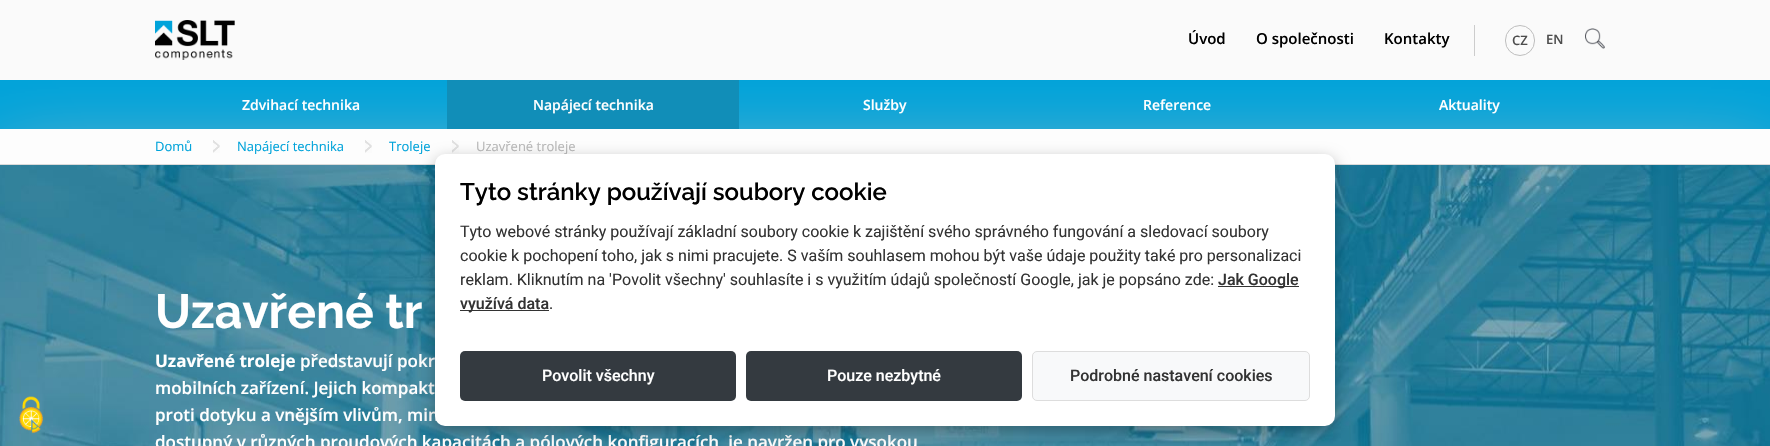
static SkFont makeFont(const char* family, int weight, float size, bool italic = false) {
  SkFontStyle style(weight, SkFontStyle::kNormal_Width,
    italic ? SkFontStyle::kItalic_Slant : SkFontStyle::kUpright_Slant);
  SkFont result(fontMgr->matchFamilyStyle(family, style), size);
  result.setSubpixel(true);
  return result;
}

static void text(SkCanvas* c, const char* s, float x, float y, const SkFont& font, SkColor color) {
  SkPaint ink(SkColor4f::FromColor(color));
  ink.setAntiAlias(true);
  c->drawString(s, x, y, font, ink);
}

static void box(SkCanvas* c, float l, float t, float r, float b, SkColor color) {
  SkPaint ink(SkColor4f::FromColor(color));
  ink.setAntiAlias(true);
  c->drawRect(SkRect::MakeLTRB(l, t, r, b), ink);
}

static void roundBox(SkCanvas* c, float l, float t, float r, float b, float radius, SkColor color) {
  SkPaint ink(SkColor4f::FromColor(color));
  ink.setAntiAlias(true);
  c->drawRoundRect(SkRect::MakeLTRB(l, t, r, b), radius, radius, ink);
}

static void picture(SkCanvas* c, const char* path, float l, float t, float r, float b) {
  auto image = SkImages::DeferredFromEncodedData(SkData::MakeFromFileName(path));
  c->drawImageRect(image, SkRect::MakeLTRB(l, t, r, b), SkSamplingOptions());
}

void draw(SkCanvas* c) {
  SkPaint paint;
  paint.setAntiAlias(true);
  c->clear(0xff00a3da);
  paint.setColor(0xffbebebe);
  paint.setMaskFilter(SkMaskFilter::MakeBlur(kNormal_SkBlurStyle, 40));
  c->drawRect(SkRect::MakeLTRB(0, 165, 1770, 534), paint);
  paint.setMaskFilter(nullptr);
  box(c, 0, 0, 1770, 80, 0xfffafafa);
  picture(c, "img_01.png", 155, 20, 235, 60);
  SkFont face1 = makeFont("Open Sans", 600, 15);
  text(c, "Úvod", 1188, 44, face1, 0xff000000);
  text(c, "O společnosti", 1256, 44, face1, 0xff000000);
  text(c, "Kontakty", 1384, 44, face1, 0xff000000);
  box(c, 1474, 25, 1475, 56, 0xffcccccc);
  paint.setStyle(SkPaint::kStroke_Style);
  paint.setStrokeWidth(1);
  c->drawRoundRect(SkRect::MakeLTRB(1505.5f, 25.5f, 1534.5f, 55.5f), 14.5f, 14.5f, paint);
  SkFont face2 = makeFont("Open Sans", 600, 13);
  text(c, "CZ", 1512, 45, face2, 0xff4d4d4d);
  text(c, "EN", 1546, 44, face2, 0xff4d4d4d);
  picture(c, "img_02.png", 1585, 28, 1605, 49);
  SkFont face3 = makeFont("Open Sans", 600, 14);
  text(c, "Zdvihací technika", 242, 110, face3, 0xffffffff);
  box(c, 447, 80, 739, 129, 0xff118eb8);
  text(c, "Napájecí technika", 533, 110, face3, 0xffffffff);
  text(c, "Služby", 863, 110, face3, 0xffffffff);
  text(c, "Reference", 1143, 110, face3, 0xffffffff);
  text(c, "Aktuality", 1439, 110, face3, 0xffffffff);
  box(c, 0, 129, 1770, 164, 0xfffdfdfd);
  box(c, 0, 164, 1770, 165, 0xffdadada);
  SkFont face4 = makeFont("Open Sans", 400, 13);
  text(c, "Domů", 155, 151, face4, 0xff00a3da);
  picture(c, "img_03.png", 213, 140, 220, 153);
  text(c, "Napájecí technika", 237, 151, face4, 0xff00a3da);
  picture(c, "img_03.png", 365, 140, 372, 153);
  text(c, "Troleje", 389, 151, face4, 0xff00a3da);
  picture(c, "img_03.png", 452, 140, 459, 153);
  text(c, "Uzavřené troleje", 476, 151, face4, 0xffb9b9b9);
  picture(c, "img_04.png", 0, 165, 1770, 446);
  SkFont face5 = makeFont("Raleway", 700, 48);
  text(c, "Uzavřené tr", 155, 328, face5, 0xffffffff);
  SkFont face6 = makeFont("Open Sans", 700, 17);
  text(c, "Uzavřené troleje", 155, 367, face6, 0xffffffff);
  SkFont face7 = makeFont("Open Sans", 600, 17);
  text(c, "představují pokr", 300, 367, face7, 0xffffffff);
  text(c, "mobilních zařízení. Jejich kompakt", 155, 394, face7, 0xffffffff);
  text(c, "proti dotyku a vnějším vlivům, min", 155, 421, face7, 0xffffffff);
  text(c, "dostupný v různých proudových kapacitách a pólových konfiguracích, je navržen pro vysokou", 155, 448, face7, 0xffffffff);
  paint.setStyle(SkPaint::kFill_Style);
  paint.setColor(0x4d000000);
  paint.setMaskFilter(SkMaskFilter::MakeBlur(kNormal_SkBlurStyle, 7.5f));
  c->drawRoundRect(SkRect::MakeLTRB(435, 159, 1335, 431), 10, 10, paint);
  paint.setMaskFilter(nullptr);
  roundBox(c, 435, 154, 1335, 426, 10, 0xffffffff);
  SkFont face8 = makeFont("Raleway", 600, 24);
  text(c, "Tyto stránky používají soubory cookie", 460, 200, face8, 0xff000000);
  SkFont face9 = makeFont("Roboto", 400, 16);
  text(c, "Tyto webové stránky používají základní soubory cookie k zajištění svého správného fungování a sledovací soubory", 460, 237, face9, 0xff333333);
  text(c, "cookie k pochopení toho, jak s nimi pracujete. S vaším souhlasem mohou být vaše údaje použity také pro personalizaci", 460, 261, face9, 0xff333333);
  text(c, "reklam. Kliknutím na 'Povolit všechny' souhlasíte i s využitím údajů společností Google, jak je popsáno zde:", 460, 285, face9, 0xff333333);
  box(c, 1218, 286, 1299, 287, 0xff333333);
  SkFont face10 = makeFont("Roboto", 500, 16);
  text(c, "Jak Google", 1218, 285, face10, 0xff333333);
  box(c, 460, 310, 549, 311, 0xff333333);
  text(c, "využívá data", 460, 309, face10, 0xff333333);
  text(c, ".", 549, 309, face9, 0xff333333);
  roundBox(c, 460, 351, 736, 401, 5, 0xff343a40);
  text(c, "Povolit všechny", 542, 381, face10, 0xffffffff);
  roundBox(c, 746, 351, 1022, 401, 5, 0xff343a40);
  text(c, "Pouze nezbytné", 827, 381, face10, 0xffffffff);
  paint.setColor(0xfff8f9fa);
  c->drawRoundRect(SkRect::MakeLTRB(1032.5f, 351.5f, 1309.5f, 400.5f), 4.5f, 4.5f, paint);
  paint.setStyle(SkPaint::kStroke_Style);
  paint.setColor(0xffdddddd);
  c->drawRoundRect(SkRect::MakeLTRB(1032.5f, 351.5f, 1309.5f, 400.5f), 4.5f, 4.5f, paint);
  text(c, "Podrobné nastavení cookies", 1070, 381, face10, 0xff333333);
  picture(c, "img_05.png", 19, 396, 43, 434);
}
